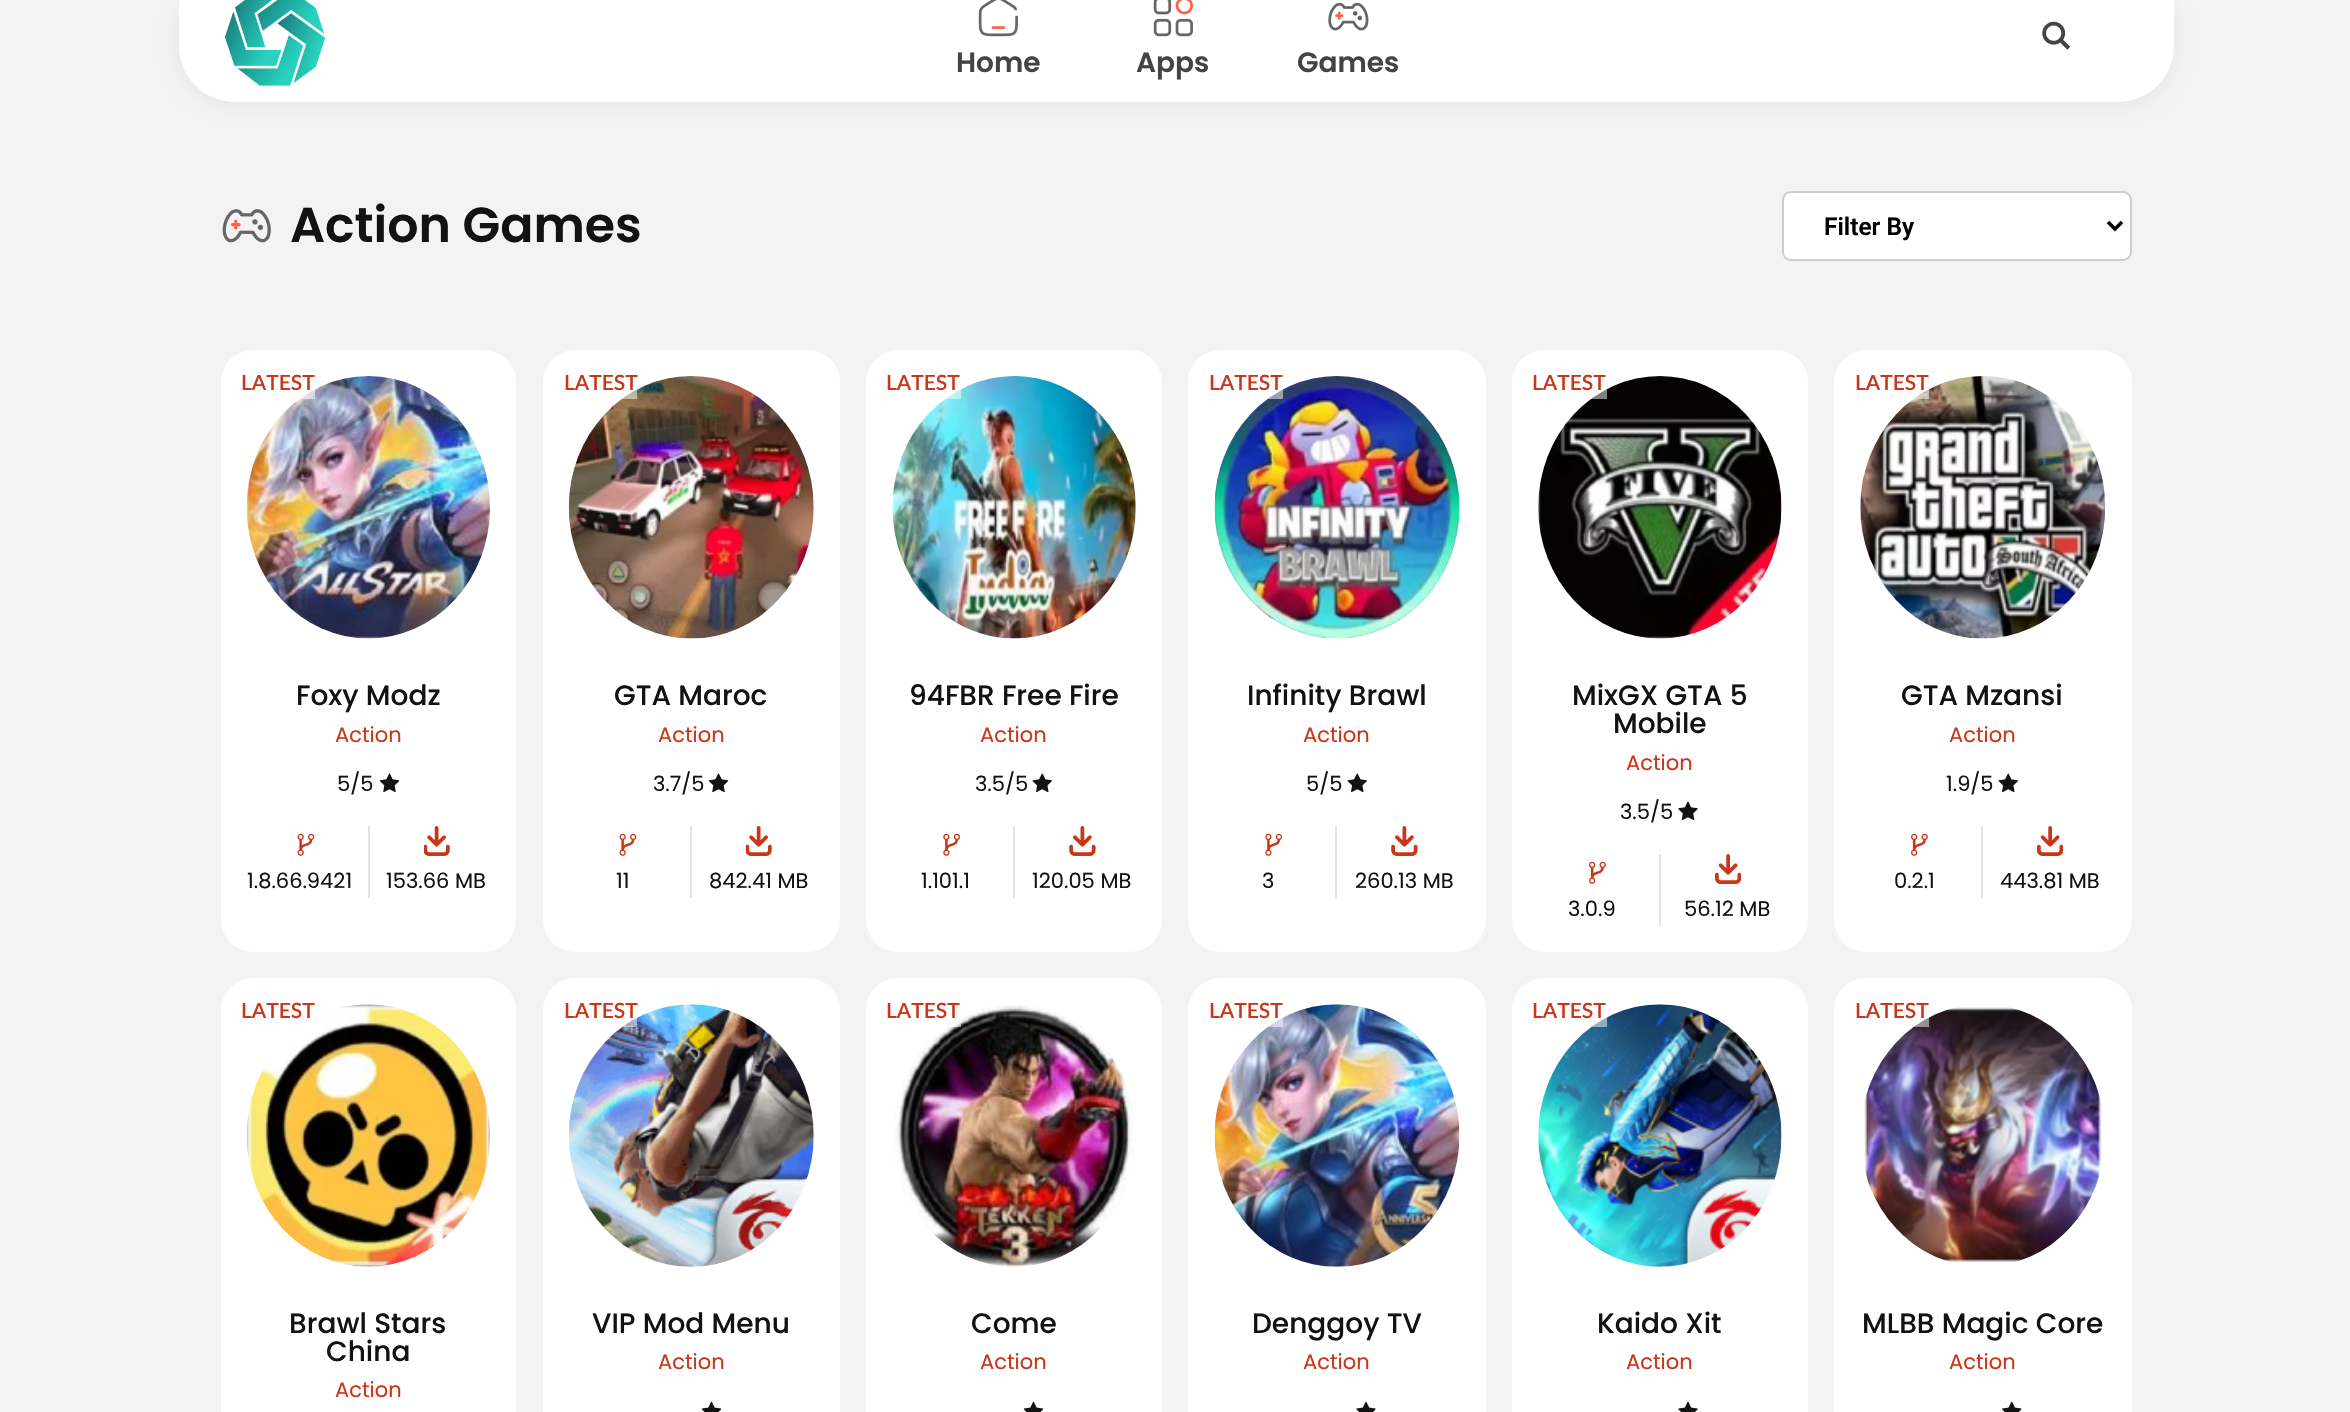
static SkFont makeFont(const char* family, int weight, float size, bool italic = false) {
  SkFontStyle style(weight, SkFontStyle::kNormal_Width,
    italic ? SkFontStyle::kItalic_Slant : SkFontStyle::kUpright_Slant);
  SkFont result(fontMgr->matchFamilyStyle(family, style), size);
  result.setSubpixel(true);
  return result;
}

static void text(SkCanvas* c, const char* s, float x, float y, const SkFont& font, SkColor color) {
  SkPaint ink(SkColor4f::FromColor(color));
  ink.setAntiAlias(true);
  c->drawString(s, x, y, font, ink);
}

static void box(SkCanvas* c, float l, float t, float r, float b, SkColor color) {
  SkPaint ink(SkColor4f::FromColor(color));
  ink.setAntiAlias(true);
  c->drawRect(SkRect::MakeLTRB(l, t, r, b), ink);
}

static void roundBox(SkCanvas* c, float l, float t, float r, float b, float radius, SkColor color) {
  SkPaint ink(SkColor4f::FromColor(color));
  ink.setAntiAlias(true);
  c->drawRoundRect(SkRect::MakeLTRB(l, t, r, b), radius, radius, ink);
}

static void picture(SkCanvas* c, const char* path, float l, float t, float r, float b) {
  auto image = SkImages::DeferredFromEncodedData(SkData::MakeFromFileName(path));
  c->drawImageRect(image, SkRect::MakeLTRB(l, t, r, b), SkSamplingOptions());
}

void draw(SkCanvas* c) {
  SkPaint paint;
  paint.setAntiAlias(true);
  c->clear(0xfff3f3f3);
  paint.setColor(0x0d000000);
  paint.setMaskFilter(SkMaskFilter::MakeBlur(kNormal_SkBlurStyle, 9));
  c->drawRoundRect(SkRect::MakeLTRB(179, -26, 2174, 105), 56, 56, paint);
  paint.setMaskFilter(nullptr);
  paint.setColor(0xffffffff);
  c->drawPath(SkPathBuilder().moveTo(179, -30).lineTo(2174, -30).lineTo(2174, 46).cubicTo(2174, 77, 2149, 102, 2118, 102).lineTo(235, 102).cubicTo(204, 102, 179, 77, 179, 46).close().detach(), paint);
  picture(c, "img_01.png", 224, 0, 326, 86);
  picture(c, "img_02.png", 2042, 21, 2071, 50);
  picture(c, "img_03.png", 978, 0, 1018, 37);
  SkFont face1 = makeFont("Poppins", 600, 28);
  text(c, "Home", 956, 72, face1, 0xff444444);
  picture(c, "img_04.png", 1153, 0, 1193, 37);
  text(c, "Apps", 1136, 72, face1, 0xff444444);
  picture(c, "img_05.png", 1328, 2, 1369, 31);
  text(c, "Games", 1297, 72, face1, 0xff444444);
  picture(c, "img_06.png", 222, 209, 271, 243);
  SkFont face2 = makeFont("Poppins", 600, 49);
  text(c, "Action Games", 290, 242, face2, 0xff121212);
  c->drawRoundRect(SkRect::MakeLTRB(1783, 192, 2131, 260), 8, 8, paint);
  paint.setStyle(SkPaint::kStroke_Style);
  paint.setStrokeWidth(2);
  paint.setColor(0xffcccccc);
  c->drawRoundRect(SkRect::MakeLTRB(1783, 192, 2131, 260), 8, 8, paint);
  paint.setStrokeWidth(3.5f);
  paint.setColor(0xff000000);
  c->drawPath(SkPathBuilder().moveTo(2108, 222).lineTo(2115, 229).lineTo(2122, 222).detach(), paint);
  SkFont face3 = makeFont("Roboto", 600, 24.5f);
  text(c, "Filter By", 1824, 235, face3, 0xff000000);
  roundBox(c, 221, 350, 516, 952, 32, 0xffffffff);
  picture(c, "img_10.png", 246, 376, 490, 639);
  box(c, 300, 389, 315, 399, 0x80ffffff);
  SkFont face4 = makeFont("Lato", 600, 21);
  text(c, "LATEST", 241, 390, face4, 0xffc93618);
  SkFont face5 = makeFont("Poppins", 500, 28);
  text(c, "Foxy Modz", 296, 705, face5, 0xff121212);
  SkFont face6 = makeFont("Poppins", 400, 21);
  text(c, "Action", 335, 742, face6, 0xffc93618);
  text(c, "5/5", 337, 791, face6, 0xff121212);
  picture(c, "img_07.png", 379, 773, 400, 793);
  picture(c, "img_08.png", 297, 833, 315, 856);
  text(c, "1.8.66.9421", 247, 888, face6, 0xff121212);
  box(c, 368, 826, 370, 898, 0xffe3e3e3);
  picture(c, "img_09.png", 424, 826, 450, 856);
  text(c, "153.66 MB", 386, 888, face6, 0xff121212);
  roundBox(c, 543, 350, 840, 952, 32, 0xffffffff);
  picture(c, "img_11.png", 568, 376, 814, 639);
  box(c, 622, 389, 637, 399, 0x80ffffff);
  text(c, "LATEST", 564, 390, face4, 0xffc93618);
  text(c, "GTA Maroc", 614, 705, face5, 0xff121212);
  text(c, "Action", 658, 742, face6, 0xffc93618);
  text(c, "3.7/5", 653, 791, face6, 0xff121212);
  picture(c, "img_07.png", 708, 773, 729, 793);
  picture(c, "img_08.png", 619, 833, 637, 856);
  text(c, "11", 616, 888, face6, 0xff121212);
  box(c, 690, 826, 692, 898, 0xffe3e3e3);
  picture(c, "img_09.png", 746, 826, 772, 856);
  text(c, "842.41 MB", 709, 888, face6, 0xff121212);
  roundBox(c, 866, 350, 1162, 952, 32, 0xffffffff);
  picture(c, "img_15.png", 892, 376, 1136, 639);
  box(c, 945, 389, 961, 399, 0x80ffffff);
  text(c, "LATEST", 886, 390, face4, 0xffc93618);
  text(c, "94FBR Free Fire", 909, 705, face5, 0xff121212);
  text(c, "Action", 980, 742, face6, 0xffc93618);
  text(c, "3.5/5", 975, 791, face6, 0xff121212);
  picture(c, "img_12.png", 1032, 773, 1052, 793);
  picture(c, "img_13.png", 943, 833, 960, 856);
  text(c, "1.101.1", 921, 888, face6, 0xff121212);
  box(c, 1013, 826, 1015, 898, 0xffe3e3e3);
  picture(c, "img_14.png", 1069, 826, 1096, 856);
  text(c, "120.05 MB", 1032, 888, face6, 0xff121212);
  roundBox(c, 1188, 350, 1486, 952, 32, 0xffffffff);
  picture(c, "img_16.png", 1214, 376, 1460, 639);
  box(c, 1267, 389, 1283, 399, 0x80ffffff);
  text(c, "LATEST", 1209, 390, face4, 0xffc93618);
  text(c, "Infinity Brawl", 1247, 705, face5, 0xff121212);
  text(c, "Action", 1303, 742, face6, 0xffc93618);
  text(c, "5/5", 1306, 791, face6, 0xff121212);
  picture(c, "img_12.png", 1347, 773, 1367, 793);
  picture(c, "img_13.png", 1265, 833, 1282, 856);
  text(c, "3", 1262, 888, face6, 0xff121212);
  box(c, 1335, 826, 1337, 898, 0xffe3e3e3);
  picture(c, "img_14.png", 1391, 826, 1418, 856);
  text(c, "260.13 MB", 1355, 888, face6, 0xff121212);
  roundBox(c, 1512, 350, 1808, 952, 32, 0xffffffff);
  picture(c, "img_20.png", 1538, 376, 1782, 639);
  box(c, 1591, 389, 1607, 399, 0x80ffffff);
  text(c, "LATEST", 1532, 390, face4, 0xffc93618);
  text(c, "MixGX GTA 5", 1572, 705, face5, 0xff121212);
  text(c, "Mobile", 1613, 733, face5, 0xff121212);
  text(c, "Action", 1626, 770, face6, 0xffc93618);
  text(c, "3.5/5", 1620, 819, face6, 0xff121212);
  picture(c, "img_17.png", 1678, 801, 1698, 821);
  picture(c, "img_18.png", 1589, 861, 1606, 884);
  text(c, "3.0.9", 1568, 916, face6, 0xff121212);
  box(c, 1659, 854, 1661, 926, 0xffe3e3e3);
  picture(c, "img_19.png", 1715, 854, 1741, 884);
  text(c, "56.12 MB", 1684, 916, face6, 0xff121212);
  roundBox(c, 1834, 350, 2132, 952, 32, 0xffffffff);
  picture(c, "img_21.png", 1860, 376, 2106, 639);
  box(c, 1913, 389, 1929, 399, 0x80ffffff);
  text(c, "LATEST", 1855, 390, face4, 0xffc93618);
  text(c, "GTA Mzansi", 1901, 705, face5, 0xff121212);
  text(c, "Action", 1949, 742, face6, 0xffc93618);
  text(c, "1.9/5", 1946, 791, face6, 0xff121212);
  picture(c, "img_12.png", 1998, 773, 2018, 793);
  picture(c, "img_18.png", 1911, 833, 1928, 856);
  text(c, "0.2.1", 1894, 888, face6, 0xff121212);
  box(c, 1981, 826, 1983, 898, 0xffe3e3e3);
  picture(c, "img_19.png", 2037, 826, 2063, 856);
  text(c, "443.81 MB", 2000, 888, face6, 0xff121212);
  roundBox(c, 221, 978, 516, 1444, 32, 0xffffffff);
  picture(c, "img_22.png", 247, 1004, 490, 1267);
  text(c, "LATEST", 241, 1018, face4, 0xffc93618);
  text(c, "Brawl Stars", 289, 1333, face5, 0xff121212);
  text(c, "China", 326, 1361, face5, 0xff121212);
  text(c, "Action", 335, 1397, face6, 0xffc93618);
  roundBox(c, 543, 978, 840, 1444, 32, 0xffffffff);
  picture(c, "img_24.png", 569, 1004, 814, 1267);
  box(c, 622, 1018, 637, 1027, 0x80ffffff);
  text(c, "LATEST", 564, 1018, face4, 0xffc93618);
  text(c, "VIP Mod Menu", 592, 1333, face5, 0xff121212);
  text(c, "Action", 658, 1369, face6, 0xffc93618);
  picture(c, "img_23.png", 701, 1401, 722, 1412);
  roundBox(c, 866, 978, 1162, 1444, 32, 0xffffffff);
  picture(c, "img_25.png", 894, 1005, 1135, 1267);
  box(c, 948, 1020, 961, 1027, 0x80ffffff);
  text(c, "LATEST", 886, 1018, face4, 0xffc93618);
  text(c, "Come", 971, 1333, face5, 0xff121212);
  text(c, "Action", 980, 1369, face6, 0xffc93618);
  picture(c, "img_23.png", 1023, 1401, 1044, 1412);
  roundBox(c, 1188, 978, 1486, 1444, 32, 0xffffffff);
  picture(c, "img_27.png", 1214, 1004, 1460, 1267);
  box(c, 1268, 1017, 1283, 1027, 0x80ffffff);
  text(c, "LATEST", 1209, 1018, face4, 0xffc93618);
  text(c, "Denggoy TV", 1252, 1333, face5, 0xff121212);
  text(c, "Action", 1303, 1369, face6, 0xffc93618);
  picture(c, "img_26.png", 1356, 1401, 1376, 1412);
  roundBox(c, 1512, 978, 1808, 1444, 32, 0xffffffff);
  picture(c, "img_28.png", 1538, 1004, 1782, 1267);
  box(c, 1591, 1017, 1607, 1027, 0x80ffffff);
  text(c, "LATEST", 1532, 1018, face4, 0xffc93618);
  text(c, "Kaido Xit", 1597, 1333, face5, 0xff121212);
  text(c, "Action", 1626, 1369, face6, 0xffc93618);
  picture(c, "img_26.png", 1678, 1401, 1698, 1412);
  roundBox(c, 1834, 978, 2132, 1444, 32, 0xffffffff);
  picture(c, "img_30.png", 1864, 1007, 2102, 1263);
  box(c, 1913, 1017, 1929, 1027, 0x80ffffff);
  text(c, "LATEST", 1855, 1018, face4, 0xffc93618);
  text(c, "MLBB Magic Core", 1862, 1333, face5, 0xff121212);
  text(c, "Action", 1949, 1369, face6, 0xffc93618);
  picture(c, "img_29.png", 2002, 1401, 2022, 1412);
}
